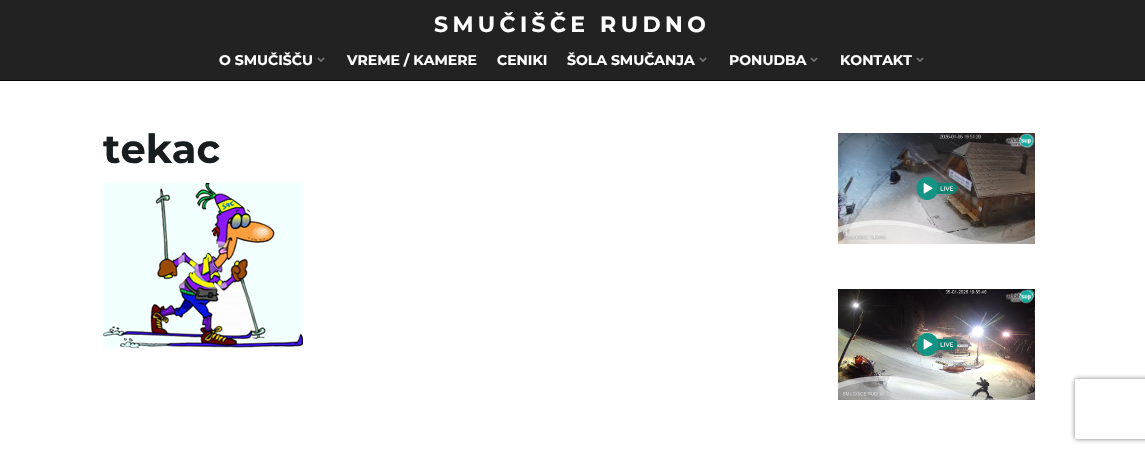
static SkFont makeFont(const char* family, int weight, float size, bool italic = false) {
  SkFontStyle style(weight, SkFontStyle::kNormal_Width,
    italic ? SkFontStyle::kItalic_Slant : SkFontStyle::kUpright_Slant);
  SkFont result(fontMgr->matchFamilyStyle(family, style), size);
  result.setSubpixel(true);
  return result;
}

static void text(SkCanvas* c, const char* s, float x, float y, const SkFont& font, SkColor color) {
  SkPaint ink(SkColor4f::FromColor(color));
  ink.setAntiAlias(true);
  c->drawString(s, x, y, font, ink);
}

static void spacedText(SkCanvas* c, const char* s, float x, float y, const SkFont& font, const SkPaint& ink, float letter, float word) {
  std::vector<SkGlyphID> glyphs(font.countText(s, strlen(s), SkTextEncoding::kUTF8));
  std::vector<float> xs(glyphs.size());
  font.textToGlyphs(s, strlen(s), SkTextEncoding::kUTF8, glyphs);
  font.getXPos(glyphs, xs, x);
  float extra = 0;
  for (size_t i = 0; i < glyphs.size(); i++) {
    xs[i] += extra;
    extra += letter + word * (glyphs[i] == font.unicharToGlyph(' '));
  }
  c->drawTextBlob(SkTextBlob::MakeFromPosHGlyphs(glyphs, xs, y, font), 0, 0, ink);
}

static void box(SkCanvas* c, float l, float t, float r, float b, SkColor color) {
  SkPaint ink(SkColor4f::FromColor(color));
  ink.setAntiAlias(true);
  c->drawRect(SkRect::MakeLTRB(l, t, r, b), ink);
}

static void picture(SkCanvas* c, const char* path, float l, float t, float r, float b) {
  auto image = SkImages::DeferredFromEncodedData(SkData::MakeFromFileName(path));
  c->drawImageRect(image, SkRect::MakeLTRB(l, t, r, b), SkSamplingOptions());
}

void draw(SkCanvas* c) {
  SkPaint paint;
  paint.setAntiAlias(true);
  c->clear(0xffffffff);
  box(c, 0, 0, 1145, 80, 0xff222222);
  box(c, 0, 80, 1145, 81, 0xff080808);
  SkFont face1 = makeFont("Montserrat", 100, 22);
  paint.setColor(0xffffffff);
  spacedText(c, "SMUČIŠČE RUDNO", 434, 32, face1, paint, 4.4f, 0);
  SkFont face2 = makeFont("Montserrat", 100, 14);
  text(c, "O SMUČIŠČU", 219, 65, face2, 0xffffffff);
  picture(c, "img_01.png", 317, 57, 325, 62);
  text(c, "VREME / KAMERE", 347, 65, face2, 0xffffffff);
  text(c, "CENIKI", 497, 65, face2, 0xffffffff);
  text(c, "ŠOLA SMUČANJA", 567, 65, face2, 0xffffffff);
  picture(c, "img_01.png", 699, 57, 707, 62);
  text(c, "PONUDBA", 729, 65, face2, 0xffffffff);
  picture(c, "img_01.png", 810, 57, 818, 62);
  text(c, "KONTAKT", 840, 65, face2, 0xffffffff);
  picture(c, "img_01.png", 916, 57, 924, 62);
  SkFont face3 = makeFont("Montserrat", 100, 40);
  text(c, "tekac", 103, 163, face3, 0xff181e1f);
  picture(c, "img_02.png", 103, 183, 303, 348);
  picture(c, "img_03.png", 838, 133, 1035, 244);
  picture(c, "img_04.png", 838, 289, 1035, 400);
  c->save();
  c->clipPath(SkPathBuilder(SkPathFillType::kEvenOdd).moveTo(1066, 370).lineTo(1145, 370).lineTo(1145, 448).lineTo(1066, 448).close().moveTo(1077, 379).lineTo(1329, 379).cubicTo(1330, 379, 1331, 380, 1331, 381).lineTo(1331, 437).cubicTo(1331, 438, 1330, 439, 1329, 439).lineTo(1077, 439).cubicTo(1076, 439, 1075, 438, 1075, 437).lineTo(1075, 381).cubicTo(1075, 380, 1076, 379, 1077, 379).close().detach(), true);
  paint.setColor(0xff808080);
  paint.setMaskFilter(SkMaskFilter::MakeBlur(kNormal_SkBlurStyle, 2.5f));
  c->drawRoundRect(SkRect::MakeLTRB(1075, 379, 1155, 439), 2, 2, paint);
  paint.setMaskFilter(nullptr);
  c->restore();
}
